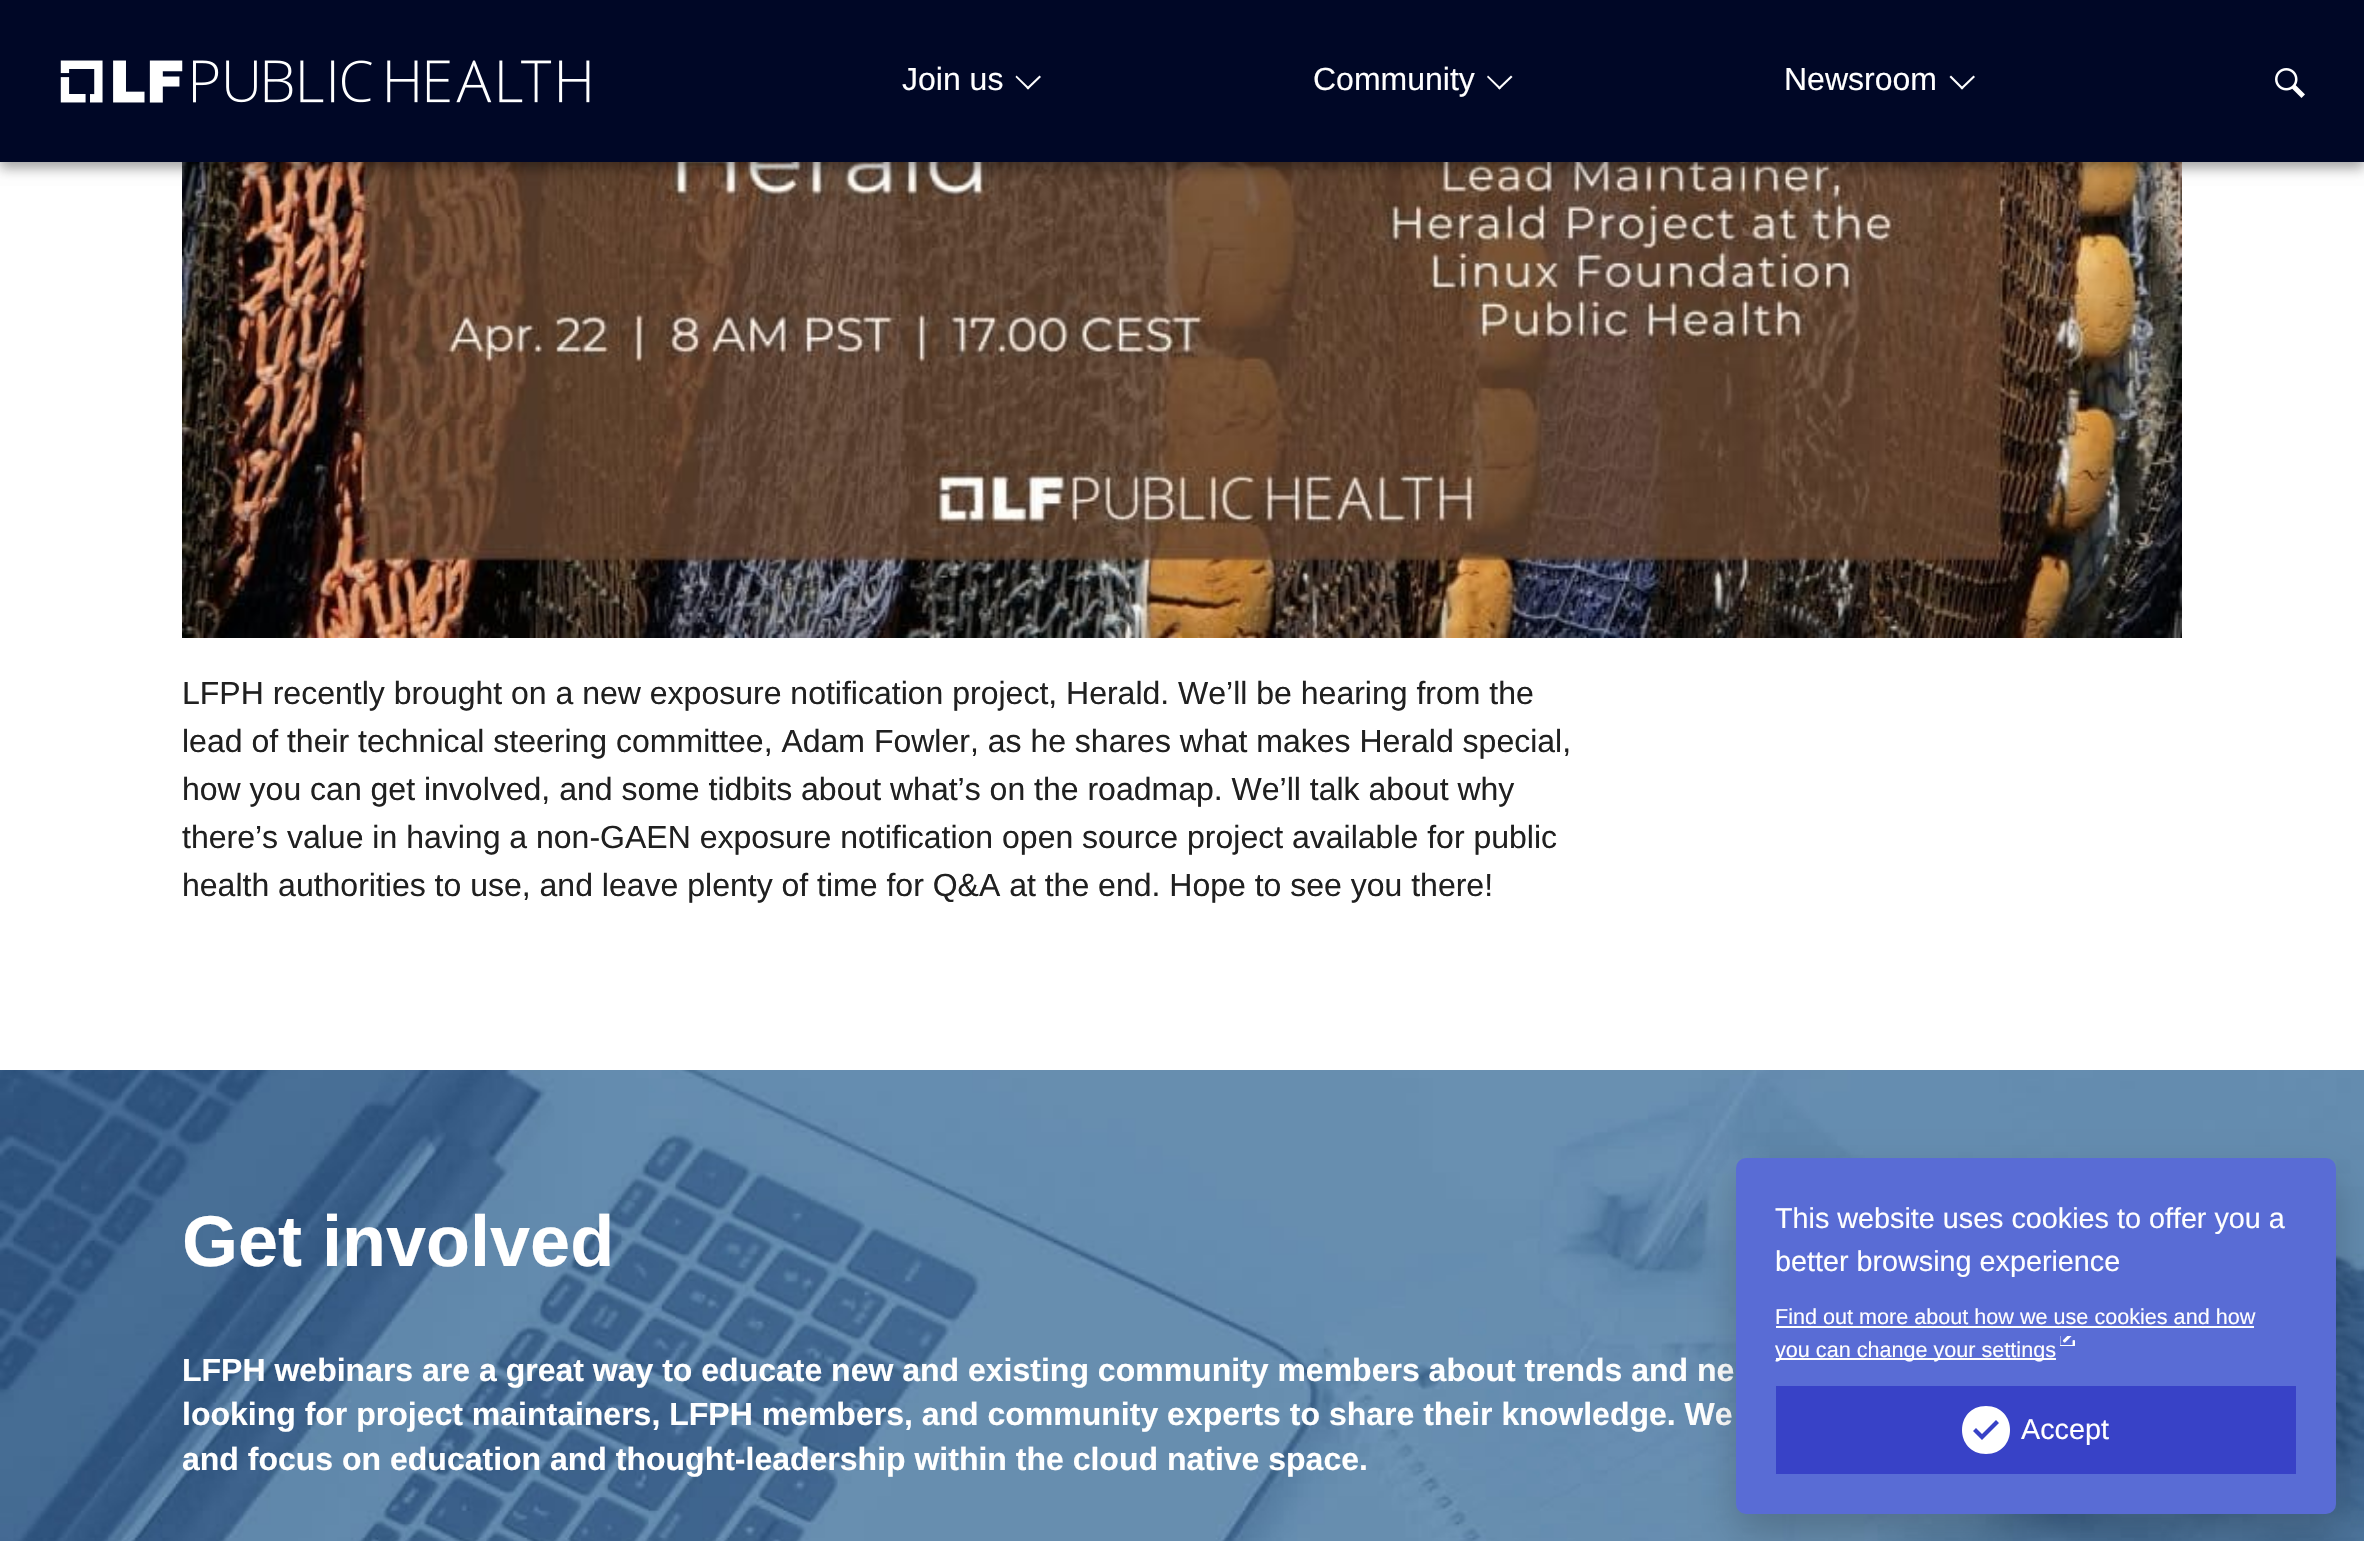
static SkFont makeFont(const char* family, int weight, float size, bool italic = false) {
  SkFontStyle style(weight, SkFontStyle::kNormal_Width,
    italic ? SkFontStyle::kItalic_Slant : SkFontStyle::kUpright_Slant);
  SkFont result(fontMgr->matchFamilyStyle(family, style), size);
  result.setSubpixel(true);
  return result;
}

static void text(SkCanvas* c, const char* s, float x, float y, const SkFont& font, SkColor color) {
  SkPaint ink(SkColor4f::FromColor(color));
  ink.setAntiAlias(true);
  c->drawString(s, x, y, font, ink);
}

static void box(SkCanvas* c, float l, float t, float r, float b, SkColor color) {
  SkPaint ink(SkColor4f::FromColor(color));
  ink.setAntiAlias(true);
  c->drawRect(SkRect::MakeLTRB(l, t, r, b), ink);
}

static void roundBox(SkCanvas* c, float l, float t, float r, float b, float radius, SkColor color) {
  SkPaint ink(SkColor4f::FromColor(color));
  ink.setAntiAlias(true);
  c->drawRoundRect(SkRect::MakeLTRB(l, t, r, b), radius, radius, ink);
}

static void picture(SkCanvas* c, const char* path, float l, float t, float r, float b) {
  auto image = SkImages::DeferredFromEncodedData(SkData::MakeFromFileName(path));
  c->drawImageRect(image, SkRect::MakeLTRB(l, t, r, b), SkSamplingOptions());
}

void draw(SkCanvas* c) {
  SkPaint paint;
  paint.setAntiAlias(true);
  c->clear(0xffffffff);
  picture(c, "img_03.png", 182, 162, 2182, 638);
  paint.setColor(0x3b000000);
  paint.setMaskFilter(SkMaskFilter::MakeBlur(kNormal_SkBlurStyle, 6));
  c->drawRect(SkRect::MakeLTRB(0, 6, 2364, 168), paint);
  paint.setMaskFilter(nullptr);
  paint.setColor(0x29000000);
  paint.setMaskFilter(SkMaskFilter::MakeBlur(kNormal_SkBlurStyle, 6));
  c->drawRect(SkRect::MakeLTRB(0, 6, 2364, 168), paint);
  paint.setMaskFilter(nullptr);
  box(c, 0, 0, 2364, 162, 0xff000726);
  picture(c, "img_01.png", 60, 60, 590, 103);
  SkFont face1 = makeFont("Liberation Sans", 400, 32);
  text(c, "Join us", 902, 90, face1, 0xffffffff);
  paint.setColor(0xffffffff);
  c->drawPath(SkPathBuilder().moveTo(1039.5f, 75.5f).lineTo(1041, 77).lineTo(1028, 89.5f).lineTo(1026.5f, 88).close().detach(), paint);
  c->drawPath(SkPathBuilder().moveTo(1016.5f, 75.5f).lineTo(1029.5f, 88).lineTo(1028, 89.5f).lineTo(1015.5f, 77).close().detach(), paint);
  text(c, "Community", 1313, 90, face1, 0xffffffff);
  c->drawPath(SkPathBuilder().moveTo(1511, 75.5f).lineTo(1512.5f, 77).lineTo(1499.5f, 89.5f).lineTo(1498, 88).close().detach(), paint);
  c->drawPath(SkPathBuilder().moveTo(1488, 75.5f).lineTo(1501, 88).lineTo(1499.5f, 89.5f).lineTo(1487, 77).close().detach(), paint);
  text(c, "Newsroom", 1784, 90, face1, 0xffffffff);
  c->drawPath(SkPathBuilder().moveTo(1973.5f, 75.5f).lineTo(1975, 77).lineTo(1962, 89.5f).lineTo(1960.5f, 88).close().detach(), paint);
  c->drawPath(SkPathBuilder().moveTo(1951, 75.5f).lineTo(1963.5f, 88).lineTo(1962, 89.5f).lineTo(1949.5f, 77).close().detach(), paint);
  picture(c, "img_02.png", 2275, 68, 2305, 98);
  text(c, "LFPH recently brought on a new exposure notification project, Herald. We’ll be hearing from the", 182, 704, face1, 0xff202020);
  text(c, "lead of their technical steering committee, Adam Fowler, as he shares what makes Herald special,", 182, 752, face1, 0xff202020);
  text(c, "how you can get involved, and some tidbits about what’s on the roadmap. We’ll talk about why", 182, 800, face1, 0xff202020);
  text(c, "there’s value in having a non-GAEN exposure notification open source project available for public", 182, 848, face1, 0xff202020);
  text(c, "health authorities to use, and leave plenty of time for Q&A at the end. Hope to see you there!", 182, 896, face1, 0xff202020);
  picture(c, "img_04.png", 0, 1070, 2364, 1541);
  SkFont face2 = makeFont("Liberation Sans", 700, 72);
  text(c, "Get involved", 182, 1266, face2, 0xffffffff);
  SkFont face3 = makeFont("Liberation Sans", 700, 32);
  text(c, "LFPH webinars are a great way to educate new and existing community members about trends and ne", 182, 1381, face3, 0xffffffff);
  text(c, "looking for project maintainers, LFPH members, and community experts to share their knowledge. We", 182, 1425, face3, 0xffffffff);
  text(c, "and focus on education and thought-leadership within the cloud native space.", 182, 1470, face3, 0xffffffff);
  paint.setColor(0x33000000);
  paint.setMaskFilter(SkMaskFilter::MakeBlur(kNormal_SkBlurStyle, 20));
  c->drawRoundRect(SkRect::MakeLTRB(1736, 1178, 2336, 1534), 10, 10, paint);
  paint.setMaskFilter(nullptr);
  roundBox(c, 1736, 1158, 2336, 1514, 10, 0xff596cd5);
  SkFont face4 = makeFont("Liberation Sans", 400, 28.75f);
  text(c, "This website uses cookies to offer you a", 1775, 1228, face4, 0xffffffff);
  text(c, "better browsing experience", 1775, 1271, face4, 0xffffffff);
  SkFont face5 = makeFont("Liberation Sans", 400, 21.6f);
  text(c, "Find out more about how we use cookies and how", 1775, 1324, face5, 0xffffffff);
  box(c, 1776, 1326, 2254, 1328, 0xffffffff);
  box(c, 1776, 1358, 2056, 1360, 0xffffffff);
  text(c, "you can change your settings", 1775, 1357, face5, 0xffffffff);
  picture(c, "img_05.png", 2060, 1336, 2075, 1346);
  box(c, 1776, 1386, 2296, 1474, 0xff3842c7);
  paint.setColor(0xffffffff);
  c->drawPath(SkPathBuilder().moveTo(1986, 1406).cubicTo(1954, 1406, 1954, 1454, 1986, 1454).cubicTo(2018, 1454, 2018, 1406, 1986, 1406).close().moveTo(1982, 1440).lineTo(1973, 1431).lineTo(1976, 1428).lineTo(1982, 1434).lineTo(1996, 1420).lineTo(1999, 1423).close().detach(), paint);
  text(c, "Accept", 2021, 1439, face4, 0xffffffff);
}
